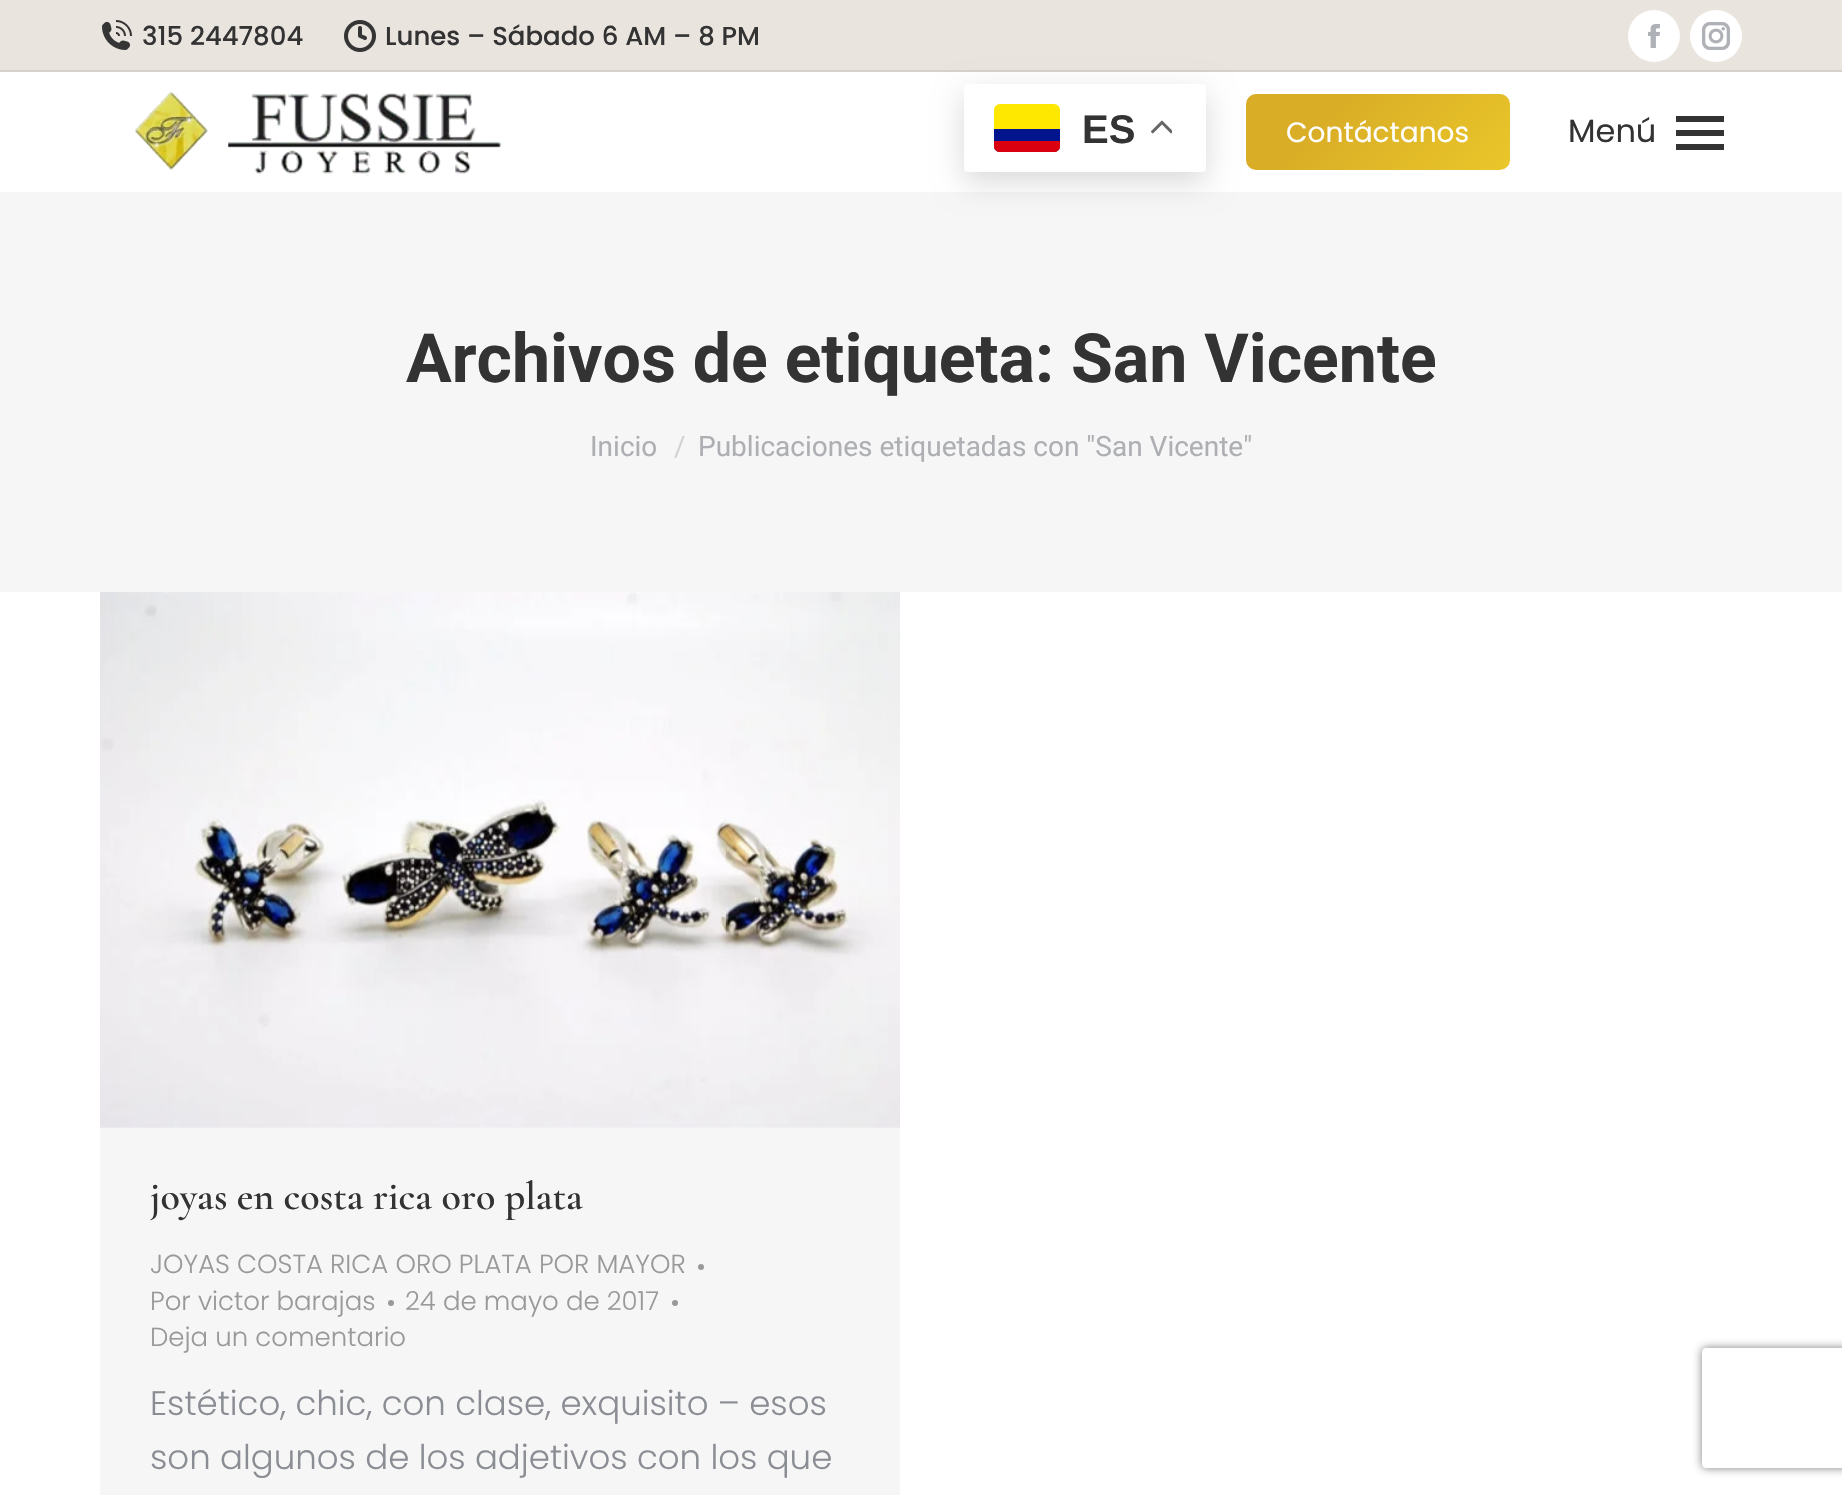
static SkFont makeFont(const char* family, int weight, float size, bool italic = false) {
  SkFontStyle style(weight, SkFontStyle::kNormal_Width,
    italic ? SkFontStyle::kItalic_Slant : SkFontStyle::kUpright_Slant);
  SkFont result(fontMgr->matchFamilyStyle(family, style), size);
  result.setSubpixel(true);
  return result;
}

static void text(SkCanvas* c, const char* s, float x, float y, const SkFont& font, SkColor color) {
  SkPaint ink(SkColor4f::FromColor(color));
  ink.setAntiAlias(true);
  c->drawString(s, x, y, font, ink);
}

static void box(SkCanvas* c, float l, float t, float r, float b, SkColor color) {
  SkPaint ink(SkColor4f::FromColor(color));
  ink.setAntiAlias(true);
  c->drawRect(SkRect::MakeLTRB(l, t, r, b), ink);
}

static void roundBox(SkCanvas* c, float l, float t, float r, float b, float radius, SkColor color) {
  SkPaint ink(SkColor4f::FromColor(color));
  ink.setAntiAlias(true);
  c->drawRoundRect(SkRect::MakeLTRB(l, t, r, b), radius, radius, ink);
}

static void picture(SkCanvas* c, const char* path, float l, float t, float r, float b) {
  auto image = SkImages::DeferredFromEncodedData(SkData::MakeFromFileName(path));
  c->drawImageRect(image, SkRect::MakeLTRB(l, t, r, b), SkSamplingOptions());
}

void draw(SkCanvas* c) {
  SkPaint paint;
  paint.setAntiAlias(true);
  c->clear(0xffffffff);
  box(c, 0, 0, 1842, 70, 0xffeae4de);
  picture(c, "img_01.png", 102, 20, 132, 50);
  SkFont face1 = makeFont("Poppins", 500, 26);
  text(c, "315 2447804", 142, 45, face1, 0xff333333);
  picture(c, "img_02.png", 344, 20, 376, 52);
  text(c, "Lunes – Sábado 6 AM – 8 PM", 385, 45, face1, 0xff333333);
  paint.setColor(0xffffffff);
  c->drawCircle(1654, 36, 26, paint);
  picture(c, "img_03.png", 1648, 24, 1660, 48);
  c->drawCircle(1716, 36, 26, paint);
  picture(c, "img_04.png", 1702, 22, 1730, 50);
  box(c, 0, 70, 1842, 72, 0xffd6d1cb);
  picture(c, "img_05.png", 135, 92, 502, 176);
  box(c, 0, 192, 1842, 592, 0xfff6f6f6);
  paint.setColor(0x26000000);
  paint.setMaskFilter(SkMaskFilter::MakeBlur(kNormal_SkBlurStyle, 15));
  c->drawRoundRect(SkRect::MakeLTRB(964, 94, 1206, 182), 4, 4, paint);
  paint.setMaskFilter(nullptr);
  roundBox(c, 964, 84, 1206, 172, 4, 0xffffffff);
  roundBox(c, 994, 104, 1060, 152, 6, 0xffffe800);
  paint.setColor(0xff00148e);
  c->drawPath(SkPathBuilder().moveTo(994, 129).lineTo(1060, 129).lineTo(1060, 146).cubicTo(1060, 149.5f, 1057.5f, 152, 1054, 152).lineTo(1000, 152).cubicTo(996.5f, 152, 994, 149.5f, 994, 146).close().detach(), paint);
  paint.setColor(0xffda0010);
  c->drawPath(SkPathBuilder().moveTo(994, 141).lineTo(1060, 141).lineTo(1060, 146).cubicTo(1060, 149.5f, 1057.5f, 152, 1054, 152).lineTo(1000, 152).cubicTo(996.5f, 152, 994, 149.5f, 994, 146).close().detach(), paint);
  SkFont face2 = makeFont("Liberation Sans", 700, 40);
  text(c, "ES", 1082, 143, face2, 0xff333333);
  picture(c, "img_06.png", 1151, 120, 1172, 134);
  {
    const SkColor colors[] = {0xffd9ad26, 0xffeac72a};
    const float stops[] = {0.3f, 1};
    const SkPoint ends[] = {{1293, 47}, {1463, 217}};
    paint.setShader(SkGradientShader::MakeLinear(ends, colors, stops, 2, SkTileMode::kClamp));
    paint.setAlpha(255);
  }
  c->drawRoundRect(SkRect::MakeLTRB(1246, 94, 1510, 170), 10, 10, paint);
  SkFont face3 = makeFont("Poppins", 400, 28);
  text(c, "Contáctanos", 1286, 142, face3, 0xffffffff);
  SkFont face4 = makeFont("Poppins", 400, 32);
  text(c, "Menú", 1568, 142, face4, 0xff333333);
  box(c, 1676, 116, 1724, 122, 0xff333333);
  box(c, 1676, 130, 1724, 136, 0xff333333);
  box(c, 1676, 144, 1724, 150, 0xff333333);
  SkFont face5 = makeFont("Roboto", 700, 68);
  text(c, "Archivos de etiqueta: San Vicente", 406, 382, face5, 0xff333333);
  SkFont face6 = makeFont("Roboto", 400, 28);
  text(c, "Inicio", 590, 456, face6, 0xffadafb3);
  text(c, "/", 674, 456, face6, 0xffd2d3d5);
  text(c, "Publicaciones etiquetadas con \"San Vicente\"", 698, 456, face6, 0xffadafb3);
  box(c, 100, 1127, 900, 1495, 0xfff6f6f6);
  picture(c, "img_07.png", 100, 592, 900, 1128);
  SkFont face7 = makeFont("Cormorant Garamond", 600, 40);
  text(c, "joyas en costa rica oro plata", 150, 1209, face7, 0xff333333);
  SkFont face8 = makeFont("Poppins", 300, 26);
  text(c, "JOYAS COSTA RICA ORO PLATA POR MAYOR", 150, 1273, face8, 0xff999999);
  paint.setShader(nullptr);
  paint.setColor(0xff999999);
  c->drawCircle(701, 1267, 3, paint);
  text(c, "Por victor barajas", 150, 1310, face8, 0xff999999);
  c->drawCircle(391, 1303, 3, paint);
  text(c, "24 de mayo de 2017", 405, 1310, face8, 0xff999999);
  c->drawCircle(675, 1303, 3, paint);
  text(c, "Deja un comentario", 150, 1346, face8, 0xff999999);
  SkFont face9 = makeFont("Poppins", 300, 34);
  text(c, "Estético, chic, con clase, exquisito – esos", 150, 1415, face9, 0xff8b8d94);
  text(c, "son algunos de los adjetivos con los que", 150, 1469, face9, 0xff8b8d94);
  c->save();
  c->clipPath(SkPathBuilder(SkPathFillType::kEvenOdd).moveTo(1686, 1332).lineTo(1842, 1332).lineTo(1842, 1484).lineTo(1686, 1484).close().moveTo(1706, 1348).lineTo(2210, 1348).cubicTo(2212, 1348, 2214, 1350, 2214, 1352).lineTo(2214, 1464).cubicTo(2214, 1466, 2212, 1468, 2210, 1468).lineTo(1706, 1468).cubicTo(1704, 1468, 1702, 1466, 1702, 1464).lineTo(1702, 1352).cubicTo(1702, 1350, 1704, 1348, 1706, 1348).close().detach(), true);
  paint.setColor(0xff808080);
  paint.setMaskFilter(SkMaskFilter::MakeBlur(kNormal_SkBlurStyle, 5));
  c->drawRoundRect(SkRect::MakeLTRB(1702, 1348, 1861, 1468), 4, 4, paint);
  paint.setMaskFilter(nullptr);
  c->restore();
}
